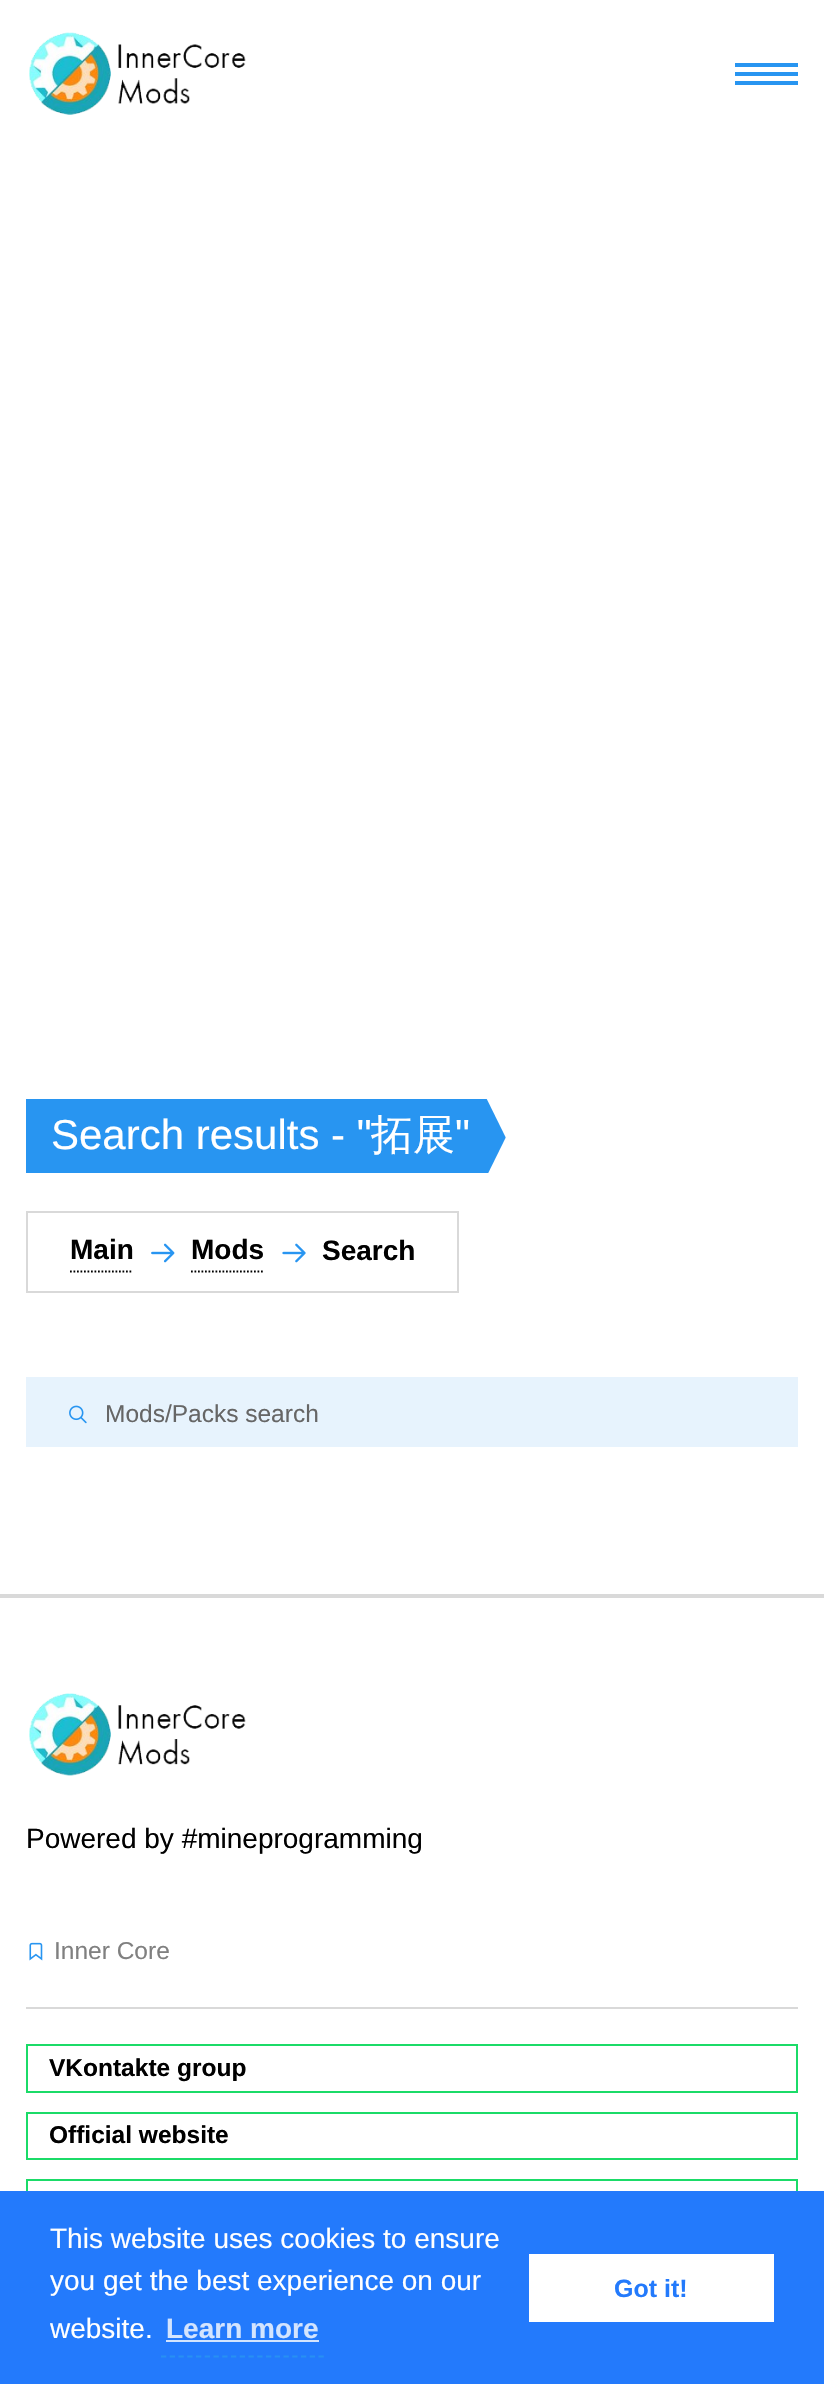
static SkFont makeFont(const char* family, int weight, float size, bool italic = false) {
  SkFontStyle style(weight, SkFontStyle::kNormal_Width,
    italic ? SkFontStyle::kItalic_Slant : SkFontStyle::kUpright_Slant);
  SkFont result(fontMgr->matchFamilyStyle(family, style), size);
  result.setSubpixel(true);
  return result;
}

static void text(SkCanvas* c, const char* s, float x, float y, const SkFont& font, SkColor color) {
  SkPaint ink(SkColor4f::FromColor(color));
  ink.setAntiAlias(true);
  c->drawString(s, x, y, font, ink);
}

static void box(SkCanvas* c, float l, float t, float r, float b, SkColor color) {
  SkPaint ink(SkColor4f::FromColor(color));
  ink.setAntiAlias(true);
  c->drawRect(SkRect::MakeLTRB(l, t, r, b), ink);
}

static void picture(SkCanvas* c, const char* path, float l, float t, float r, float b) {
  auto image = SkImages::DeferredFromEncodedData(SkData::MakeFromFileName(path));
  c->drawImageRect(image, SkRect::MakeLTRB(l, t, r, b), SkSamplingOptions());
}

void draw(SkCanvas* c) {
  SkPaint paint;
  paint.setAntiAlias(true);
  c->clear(0xffffffff);
  picture(c, "img_01.png", 29, 32, 246, 115);
  box(c, 735, 72, 798, 76, 0xff2895f1);
  box(c, 735, 63, 798, 67, 0xff2895f1);
  box(c, 735, 81, 798, 85, 0xff2895f1);
  box(c, 26, 1099, 506, 1173, 0xff2895f1);
  c->save();
  c->clipRect(SkRect::MakeLTRB(26, 1099, 534, 1173));
  paint.setColor(0xffffffff);
  c->drawPath(SkPathBuilder().moveTo(436, 996).lineTo(646, 996).lineTo(541, 1209).close().detach(), paint);
  c->restore();
  SkFont face1 = makeFont("Liberation Sans", 400, 42);
  text(c, "Search results - \"", 51, 1149, face1, 0xffffffff);
  SkFont face2 = makeFont("WenQuanYi Zen Hei", 500, 42);
  text(c, "拓展", 371, 1149, face2, 0xffffffff);
  text(c, "\"", 455, 1149, face1, 0xffffffff);
  c->save();
  c->clipRect(SkRect::MakeLTRB(26, 1099, 534, 1173));
  c->drawPath(SkPathBuilder().moveTo(646, 1279).lineTo(436, 1279).lineTo(541, 1066).close().detach(), paint);
  c->restore();
  paint.setStyle(SkPaint::kStroke_Style);
  paint.setStrokeWidth(2);
  paint.setColor(0xffd9d9d9);
  c->drawRect(SkRect::MakeLTRB(27, 1212, 458, 1292), paint);
  paint.setStrokeWidth(1.8f);
  paint.setColor(0xff000000);
  paint.setPathEffect(SkDashPathEffect::Make({{1.75f, 1.75f}}, 0));
  c->drawPath(SkPathBuilder().moveTo(70, 1271.5f).lineTo(133, 1271.5f).detach(), paint);
  paint.setPathEffect(nullptr);
  SkFont face3 = makeFont("Liberation Sans", 700, 28);
  text(c, "Main", 70, 1259, face3, 0xff000000);
  picture(c, "img_02.png", 151, 1243, 175, 1263);
  paint.setPathEffect(SkDashPathEffect::Make({{1.75f, 1.75f}}, 0));
  c->drawPath(SkPathBuilder().moveTo(191, 1271.5f).lineTo(264, 1271.5f).detach(), paint);
  paint.setPathEffect(nullptr);
  text(c, "Mods", 191, 1259, face3, 0xff000000);
  picture(c, "img_03.png", 282, 1243, 306, 1263);
  text(c, "Search", 322, 1260, face3, 0xff000000);
  box(c, 26, 1377, 798, 1447, 0xffe7f3fd);
  picture(c, "img_04.png", 69, 1405, 87, 1424);
  SkFont face4 = makeFont("Liberation Sans", 400, 24.5f);
  text(c, "Mods/Packs search", 105, 1422, face4, 0xff666666);
  box(c, 0, 1594, 824, 1598, 0xffd9d9d9);
  picture(c, "img_05.png", 29, 1693, 246, 1776);
  SkFont face5 = makeFont("Liberation Sans", 400, 28);
  text(c, "Powered by #mineprogramming", 26, 1848, face5, 0xff000000);
  box(c, 26, 2007, 798, 2009, 0xffd9d9d9);
  picture(c, "img_06.png", 29, 1942, 43, 1961);
  text(c, "Inner Core", 54, 1959, face4, 0xff808080);
  paint.setStrokeWidth(2);
  paint.setColor(0xff1bdb68);
  c->drawRect(SkRect::MakeLTRB(27, 2045, 797, 2092), paint);
  SkFont face6 = makeFont("Liberation Sans", 700, 24.5f);
  text(c, "VKontakte group", 49, 2076, face6, 0xff000000);
  c->drawRect(SkRect::MakeLTRB(27, 2113, 797, 2159), paint);
  text(c, "Official website", 49, 2143, face6, 0xff000000);
  c->drawRect(SkRect::MakeLTRB(27, 2180, 797, 2225), paint);
  box(c, 0, 2191, 824, 2384, 0xff237afc);
  text(c, "This website uses cookies to ensure", 50, 2248, face5, 0xffffffff);
  text(c, "you get the best experience on our", 50, 2290, face5, 0xffffffff);
  text(c, "website.", 50, 2338, face5, 0xffffffff);
  paint.setStrokeWidth(1.8f);
  paint.setColor(0xff2790f3);
  paint.setPathEffect(SkDashPathEffect::Make({{5.25f, 3.5f}}, 0));
  c->drawPath(SkPathBuilder().moveTo(161, 2356.5f).lineTo(324, 2356.5f).detach(), paint);
  paint.setPathEffect(nullptr);
  text(c, "Learn more", 166, 2338, face3, 0xffd3e4fe);
  box(c, 166, 2340, 319, 2342, 0xffd3e4fe);
  box(c, 529, 2254, 774, 2322, 0xffffffff);
  SkFont face7 = makeFont("Liberation Sans", 700, 25);
  text(c, "Got it!", 614, 2297, face7, 0xff237afc);
}
